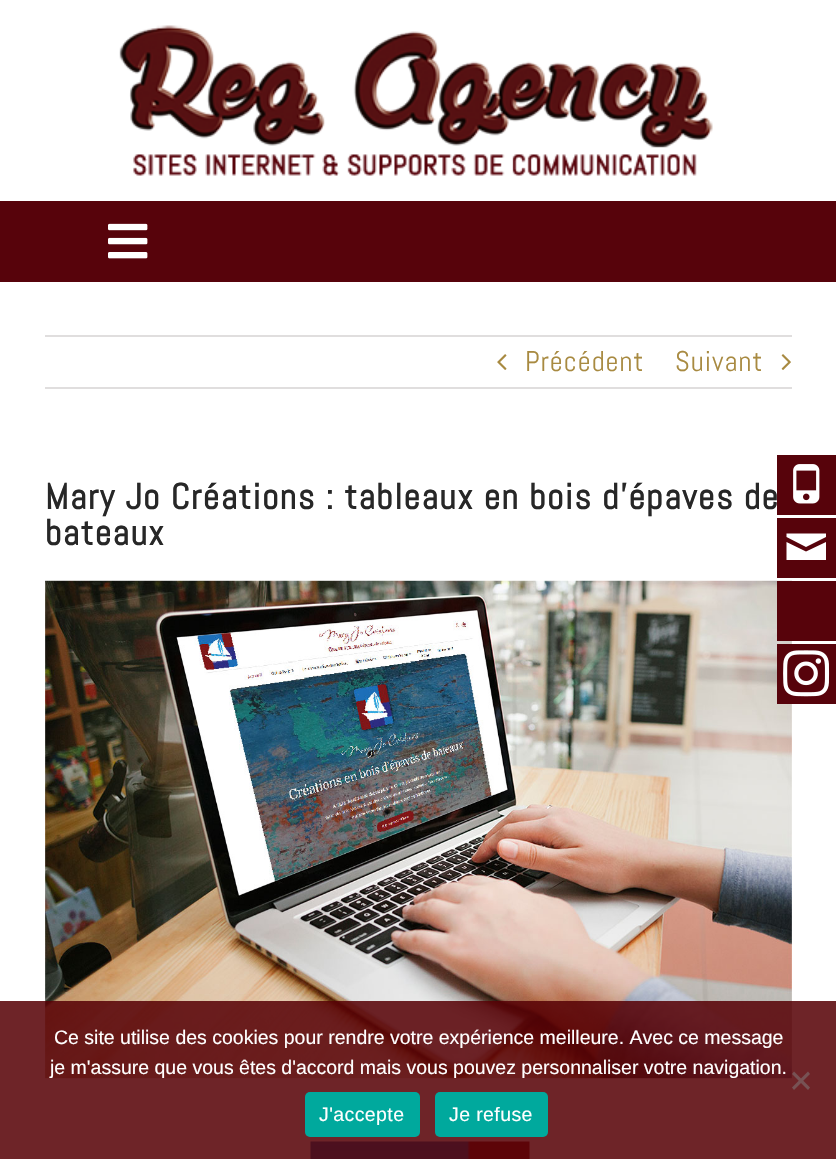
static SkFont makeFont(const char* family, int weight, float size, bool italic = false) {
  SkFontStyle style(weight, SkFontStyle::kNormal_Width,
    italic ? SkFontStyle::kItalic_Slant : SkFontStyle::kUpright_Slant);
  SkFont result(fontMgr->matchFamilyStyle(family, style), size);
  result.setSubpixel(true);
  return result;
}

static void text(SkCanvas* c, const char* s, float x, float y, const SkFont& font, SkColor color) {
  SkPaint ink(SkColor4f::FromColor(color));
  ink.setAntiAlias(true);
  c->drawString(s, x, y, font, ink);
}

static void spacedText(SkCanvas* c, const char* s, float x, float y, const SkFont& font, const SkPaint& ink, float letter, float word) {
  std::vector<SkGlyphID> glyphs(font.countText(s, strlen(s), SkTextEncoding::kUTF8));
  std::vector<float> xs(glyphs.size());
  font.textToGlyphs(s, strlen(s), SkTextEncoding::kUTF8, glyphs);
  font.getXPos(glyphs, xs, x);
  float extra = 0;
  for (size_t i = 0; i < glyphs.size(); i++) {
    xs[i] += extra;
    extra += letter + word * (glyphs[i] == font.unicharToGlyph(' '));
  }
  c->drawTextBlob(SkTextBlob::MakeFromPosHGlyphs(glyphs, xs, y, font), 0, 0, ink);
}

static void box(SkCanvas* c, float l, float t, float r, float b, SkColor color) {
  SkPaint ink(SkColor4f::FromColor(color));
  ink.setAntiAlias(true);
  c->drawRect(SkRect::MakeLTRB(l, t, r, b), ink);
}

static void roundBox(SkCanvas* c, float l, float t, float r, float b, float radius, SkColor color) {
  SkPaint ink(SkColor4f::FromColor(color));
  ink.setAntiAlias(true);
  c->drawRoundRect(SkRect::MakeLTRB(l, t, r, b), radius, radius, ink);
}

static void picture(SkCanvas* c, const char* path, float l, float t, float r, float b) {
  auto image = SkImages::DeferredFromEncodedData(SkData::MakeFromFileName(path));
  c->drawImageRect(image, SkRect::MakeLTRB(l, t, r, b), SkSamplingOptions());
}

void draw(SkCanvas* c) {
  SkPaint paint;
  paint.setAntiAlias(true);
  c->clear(0xffffffff);
  picture(c, "img_01.png", 119, 25, 713, 176);
  box(c, 0, 201, 836, 282, 0xff57030b);
  picture(c, "img_02.png", 108, 223, 148, 259);
  box(c, 45, 335, 792, 337, 0xffe0dede);
  box(c, 45, 387, 792, 389, 0xffe0dede);
  picture(c, "img_03.png", 497, 354, 507, 370);
  SkFont face1 = makeFont("Abel", 400, 28.5f);
  paint.setColor(0xffa88a41);
  spacedText(c, "Précédent", 525, 371, face1, paint, 1, 0);
  spacedText(c, "Suivant", 675, 371, face1, paint, 1, 0);
  picture(c, "img_04.png", 781, 354, 791, 370);
  SkFont face2 = makeFont("Abel", 700, 36);
  paint.setColor(0xff272727);
  spacedText(c, "Mary Jo Créations : tableaux en bois d’épaves de", 45, 509, face2, paint, 1.5f, 0);
  spacedText(c, "bateaux", 45, 545, face2, paint, 1.5f, 0);
  picture(c, "img_05.png", 45, 580, 792, 1079);
  picture(c, "img_06.png", 310, 1141, 530, 1159);
  box(c, 777, 455, 836, 515, 0xff57030b);
  picture(c, "img_07.png", 793, 464, 820, 504);
  box(c, 777, 518, 836, 578, 0xff57030b);
  paint.setColor(0xffffffff);
  c->drawPath(SkPathBuilder().moveTo(786.5f, 533.5f).lineTo(826, 533.5f).lineTo(826, 537).lineTo(806, 547).lineTo(786.5f, 537).close().moveTo(786.5f, 542).lineTo(806, 551.5f).lineTo(826, 542).lineTo(826, 560).lineTo(786.5f, 560).close().detach(), paint);
  box(c, 777, 581, 836, 641, 0xff57030b);
  box(c, 777, 644, 836, 704, 0xff57030b);
  picture(c, "img_08.png", 783, 650, 830, 697);
  box(c, 0, 1001, 836, 1159, 0xdb560005);
  SkFont face3 = makeFont("Liberation Sans", 400, 19.5f);
  text(c, "Ce site utilise des cookies pour rendre votre expérience meilleure. Avec ce message", 54, 1044, face3, 0xffffffff);
  text(c, "je m'assure que vous êtes d'accord mais vous pouvez personnaliser votre navigation.", 50, 1074, face3, 0xffffffff);
  paint.setColor(0xff775254);
  c->drawPath(SkPathBuilder().moveTo(808, 1071.5f).lineTo(810, 1074).lineTo(794, 1090).lineTo(792, 1087.5f).close().detach(), paint);
  c->drawPath(SkPathBuilder().moveTo(792, 1074).lineTo(794, 1071.5f).lineTo(810, 1087.5f).lineTo(808, 1090).close().detach(), paint);
  roundBox(c, 305, 1092, 420, 1137, 5, 0xff00a99d);
  paint.setColor(0xffffffff);
  spacedText(c, "J'accepte", 319, 1121, face3, paint, 0.4f, 0);
  roundBox(c, 435, 1092, 548, 1137, 5, 0xff00a99d);
  spacedText(c, "Je refuse", 449, 1121, face3, paint, 0.4f, 0);
}
